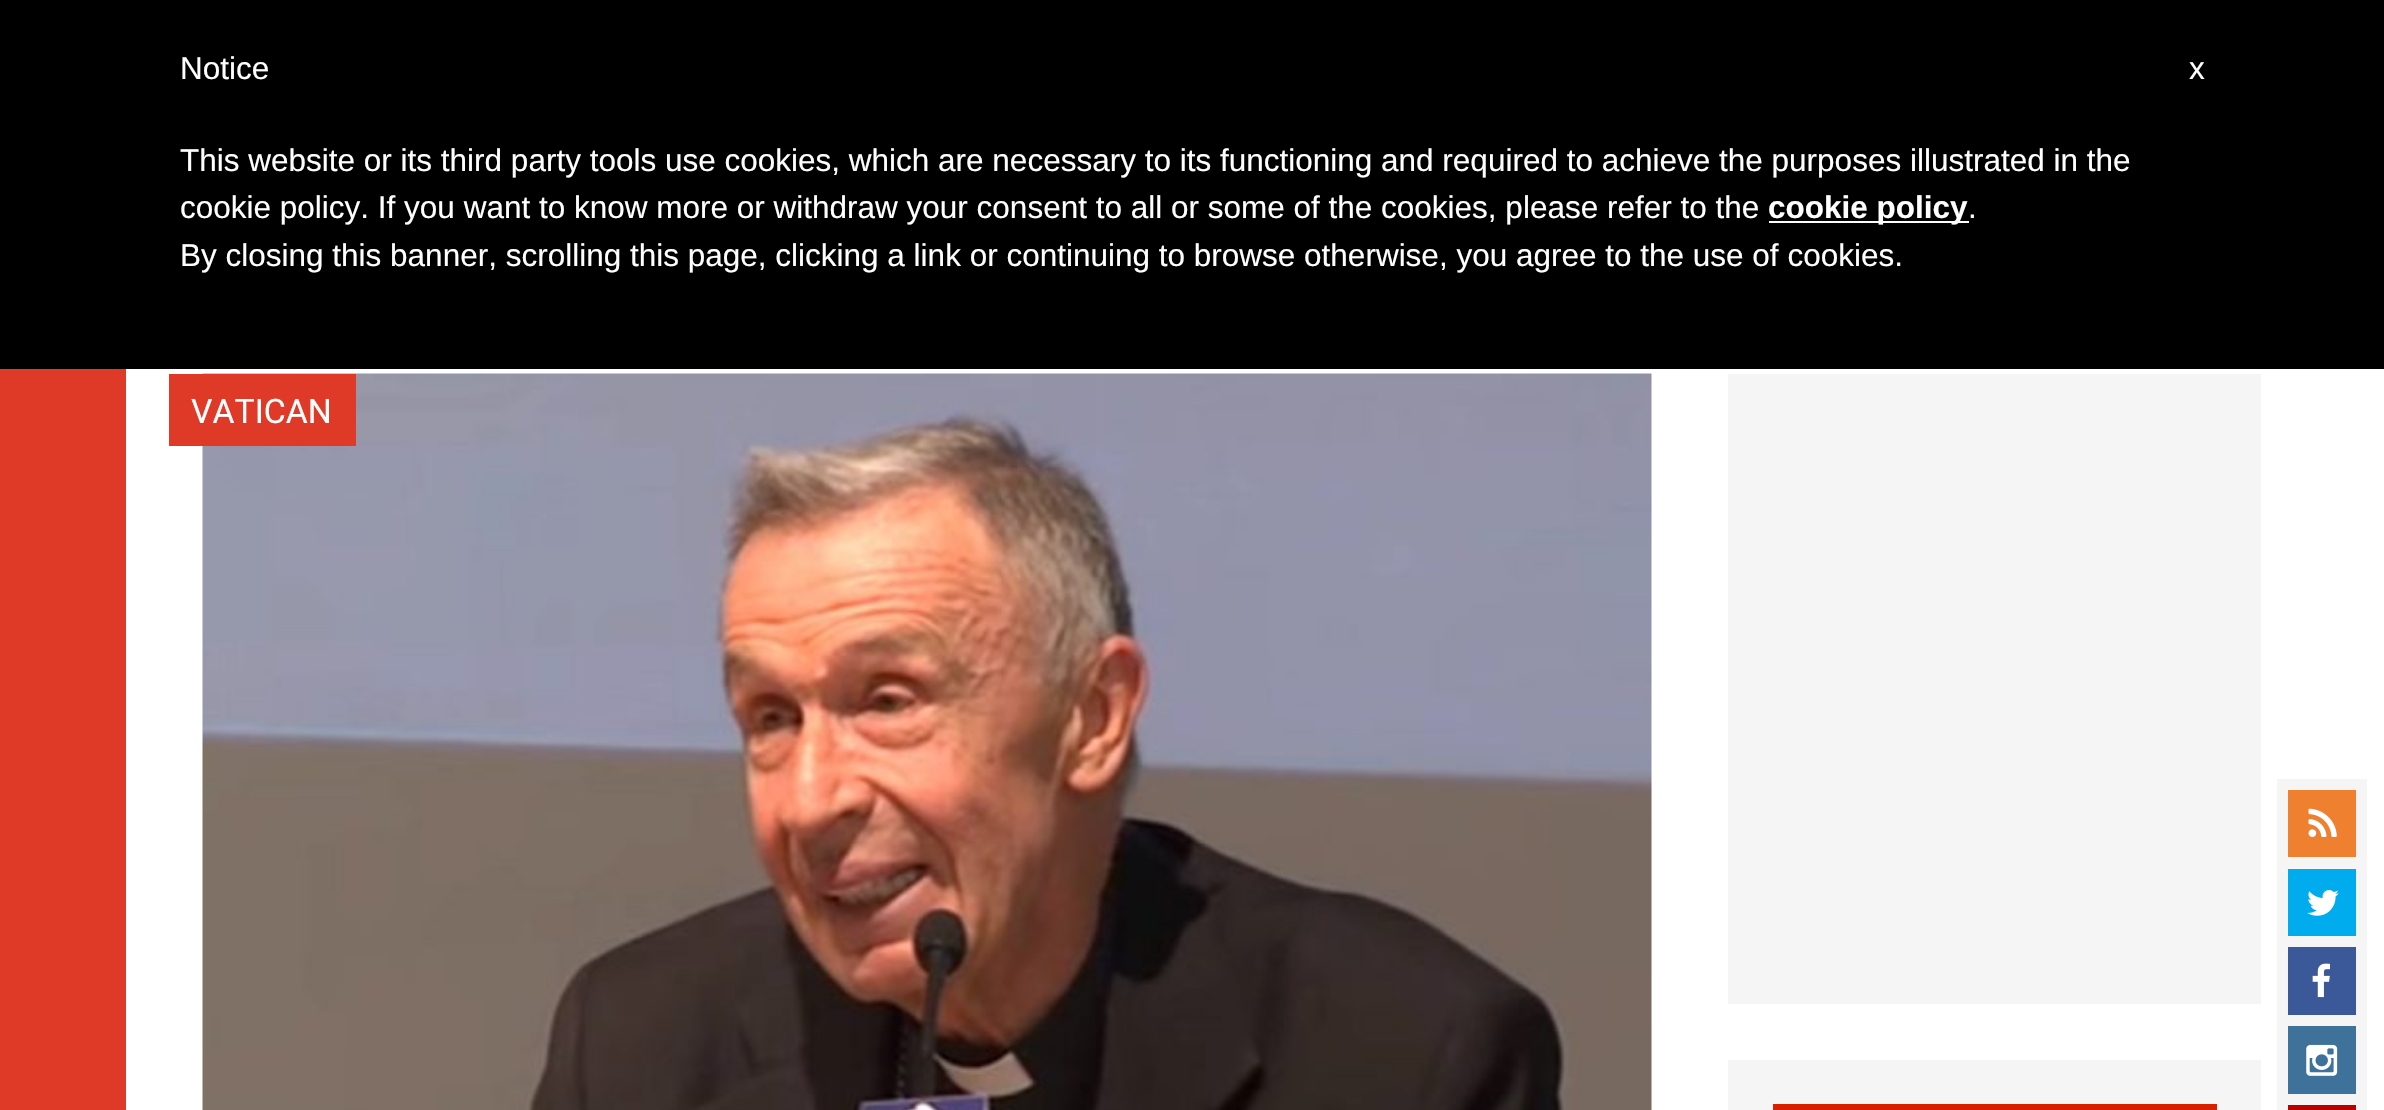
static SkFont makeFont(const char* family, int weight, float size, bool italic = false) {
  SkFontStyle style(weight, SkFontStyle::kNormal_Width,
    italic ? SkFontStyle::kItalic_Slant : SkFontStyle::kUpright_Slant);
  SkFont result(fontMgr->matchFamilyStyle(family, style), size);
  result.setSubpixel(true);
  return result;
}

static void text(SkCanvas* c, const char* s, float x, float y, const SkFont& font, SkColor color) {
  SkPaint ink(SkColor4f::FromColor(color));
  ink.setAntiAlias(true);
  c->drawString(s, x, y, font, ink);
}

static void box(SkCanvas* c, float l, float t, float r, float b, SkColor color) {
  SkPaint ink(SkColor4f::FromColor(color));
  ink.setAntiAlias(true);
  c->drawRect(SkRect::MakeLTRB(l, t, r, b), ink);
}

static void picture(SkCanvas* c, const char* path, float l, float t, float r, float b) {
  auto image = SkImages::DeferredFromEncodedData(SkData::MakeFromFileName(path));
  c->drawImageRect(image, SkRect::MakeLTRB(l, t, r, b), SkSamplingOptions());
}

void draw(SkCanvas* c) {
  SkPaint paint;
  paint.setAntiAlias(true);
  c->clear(0xffffffff);
  box(c, 0, 0, 2384, 369, 0xff000000);
  SkFont face1 = makeFont("Liberation Sans", 400, 31.5f);
  text(c, "Notice", 180, 79, face1, 0xffffffff);
  text(c, "This website or its third party tools use cookies, which are necessary to its functioning and required to achieve the purposes illustrated in the", 180, 171, face1, 0xffffffff);
  text(c, "cookie policy. If you want to know more or withdraw your consent to all or some of the cookies, please refer to the", 180, 218, face1, 0xffffffff);
  box(c, 1769, 221, 1969, 223, 0xffffffff);
  SkFont face2 = makeFont("Liberation Sans", 700, 31.5f);
  text(c, "cookie policy", 1768, 218, face2, 0xffffffff);
  text(c, ".", 1968, 218, face1, 0xffffffff);
  text(c, "By closing this banner, scrolling this page, clicking a link or continuing to browse otherwise, you agree to the use of cookies.", 180, 266, face1, 0xffffffff);
  text(c, "x", 2189, 79, face1, 0xffffffff);
  box(c, 0, 369, 126, 1110, 0xffdf3a28);
  picture(c, "img_01.png", 202, 373, 1652, 1110);
  box(c, 169, 374, 356, 446, 0xffdf3a28);
  SkFont face3 = makeFont("Roboto", 400, 33.75f);
  text(c, "VATICAN", 191, 423, face3, 0xffffffff);
  box(c, 1728, 374, 2261, 1004, 0xfff5f5f5);
  box(c, 1728, 1060, 2261, 1110, 0xfff5f5f5);
  box(c, 1773, 1104, 2217, 1110, 0xffda1f00);
  box(c, 2277, 779, 2367, 1110, 0xfff5f5f5);
  box(c, 2288, 790, 2356, 857, 0xffee802f);
  picture(c, "img_02.png", 2308, 808, 2337, 837);
  box(c, 2288, 869, 2356, 936, 0xff00aced);
  picture(c, "img_03.png", 2307, 890, 2339, 916);
  box(c, 2288, 947, 2356, 1015, 0xff3b5998);
  picture(c, "img_04.png", 2312, 963, 2330, 998);
  box(c, 2288, 1026, 2356, 1094, 0xff3f729b);
  picture(c, "img_05.png", 2306, 1044, 2338, 1076);
  box(c, 2288, 1105, 2356, 1110, 0xffbb0000);
}
